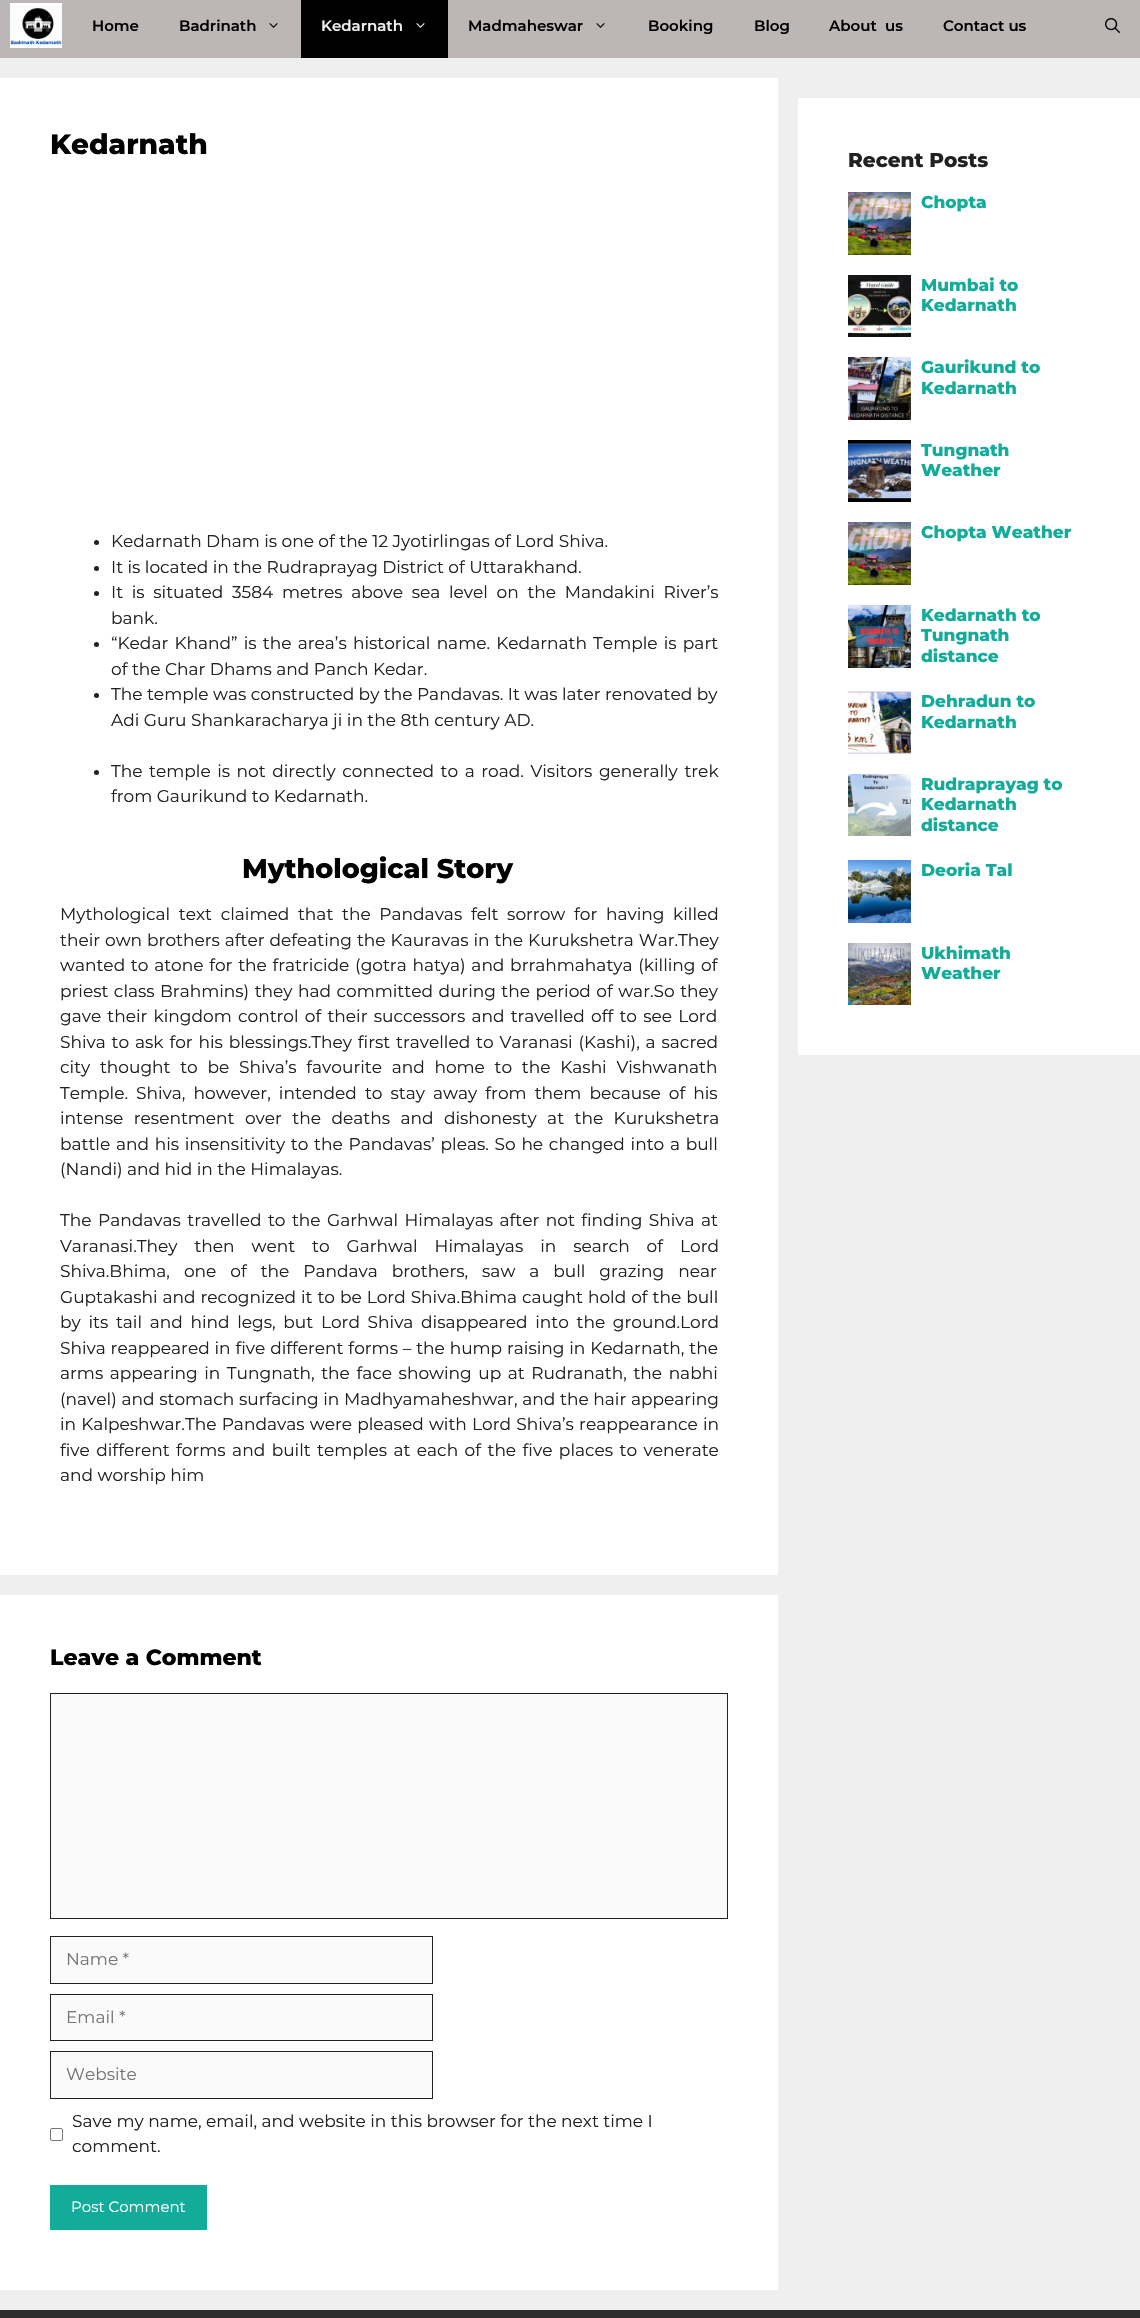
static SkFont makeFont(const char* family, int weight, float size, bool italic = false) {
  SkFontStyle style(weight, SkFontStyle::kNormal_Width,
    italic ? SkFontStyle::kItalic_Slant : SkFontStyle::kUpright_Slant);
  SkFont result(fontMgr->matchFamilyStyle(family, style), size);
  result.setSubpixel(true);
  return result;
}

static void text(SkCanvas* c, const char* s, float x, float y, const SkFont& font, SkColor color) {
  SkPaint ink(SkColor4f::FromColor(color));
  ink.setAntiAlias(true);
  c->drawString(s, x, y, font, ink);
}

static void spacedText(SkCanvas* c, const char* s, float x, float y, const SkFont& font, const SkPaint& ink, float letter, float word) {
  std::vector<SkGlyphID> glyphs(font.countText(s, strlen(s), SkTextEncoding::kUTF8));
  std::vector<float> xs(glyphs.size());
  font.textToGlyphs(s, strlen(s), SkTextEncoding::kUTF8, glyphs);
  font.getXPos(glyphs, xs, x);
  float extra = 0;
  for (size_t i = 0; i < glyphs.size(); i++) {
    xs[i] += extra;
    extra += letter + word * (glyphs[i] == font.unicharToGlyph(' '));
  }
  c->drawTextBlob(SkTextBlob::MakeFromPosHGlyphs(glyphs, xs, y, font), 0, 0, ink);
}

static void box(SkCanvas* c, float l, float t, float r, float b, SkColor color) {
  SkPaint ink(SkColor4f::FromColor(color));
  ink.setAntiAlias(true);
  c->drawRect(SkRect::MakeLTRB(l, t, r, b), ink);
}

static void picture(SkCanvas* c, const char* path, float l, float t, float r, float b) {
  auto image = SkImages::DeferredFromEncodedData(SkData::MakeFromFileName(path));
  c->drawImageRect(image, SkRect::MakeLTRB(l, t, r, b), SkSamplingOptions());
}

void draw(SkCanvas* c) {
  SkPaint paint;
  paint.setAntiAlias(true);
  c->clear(0xffefefef);
  box(c, 0, 0, 1140, 58, 0xffbcb6b6);
  picture(c, "img_01.png", 10, 3, 62, 48);
  SkFont face1 = makeFont("Montserrat", 600, 15);
  text(c, "Home", 92, 31, face1, 0xff000000);
  text(c, "Badrinath", 179, 31, face1, 0xff000000);
  picture(c, "img_02.png", 269, 23, 278, 28);
  box(c, 301, 0, 448, 58, 0xff000000);
  text(c, "Kedarnath", 321, 31, face1, 0xffefefef);
  picture(c, "img_03.png", 416, 23, 425, 28);
  text(c, "Madmaheswar", 468, 31, face1, 0xff000000);
  picture(c, "img_02.png", 596, 23, 605, 28);
  text(c, "Booking", 648, 31, face1, 0xff000000);
  text(c, "Blog", 754, 31, face1, 0xff000000);
  text(c, "About  us", 829, 31, face1, 0xff000000);
  text(c, "Contact us", 943, 31, face1, 0xff000000);
  picture(c, "img_04.png", 1105, 18, 1120, 33);
  box(c, 0, 78, 778, 1575, 0xffffffff);
  SkFont face2 = makeFont("Montserrat", 800, 28);
  text(c, "Kedarnath", 50, 154, face2, 0xff000000);
  paint.setColor(0xff212121);
  c->drawCircle(96.5f, 542.5f, 2.5f, paint);
  SkFont face3 = makeFont("Montserrat", 400, 17);
  text(c, "Kedarnath Dham is one of the 12 Jyotirlingas of Lord Shiva.", 111, 547, face3, 0xff212121);
  c->drawCircle(96.5f, 568.5f, 2.5f, paint);
  text(c, "It is located in the Rudraprayag District of Uttarakhand.", 111, 573, face3, 0xff212121);
  c->drawCircle(96.5f, 593.5f, 2.5f, paint);
  spacedText(c, "It is situated 3584 metres above sea level on the Mandakini River’s", 111, 598, face3, paint, 0, 4.25f);
  text(c, "bank.", 111, 624, face3, 0xff212121);
  c->drawCircle(96.5f, 644.5f, 2.5f, paint);
  spacedText(c, "“Kedar Khand” is the area’s historical name. Kedarnath Temple is part", 111, 649, face3, paint, 0, 1.75f);
  text(c, "of the Char Dhams and Panch Kedar.", 111, 675, face3, 0xff212121);
  c->drawCircle(96.5f, 695.5f, 2.5f, paint);
  text(c, "The temple was constructed by the Pandavas. It was later renovated by", 111, 700, face3, 0xff212121);
  text(c, "Adi Guru Shankaracharya ji in the 8th century AD.", 111, 726, face3, 0xff212121);
  c->drawCircle(96.5f, 772.5f, 2.5f, paint);
  spacedText(c, "The temple is not directly connected to a road. Visitors generally trek", 111, 777, face3, paint, 0, 2.1f);
  text(c, "from Gaurikund to Kedarnath.", 111, 802, face3, 0xff212121);
  SkFont face4 = makeFont("Montserrat", 800, 27);
  text(c, "Mythological Story", 242, 878, face4, 0xff000000);
  spacedText(c, "Mythological text claimed that the Pandavas felt sorrow for having killed", 60, 920, face3, paint, 0, 4.25f);
  spacedText(c, "their own brothers after defeating the Kauravas in the Kurukshetra War.They", 60, 946, face3, paint, 0, 0.5f);
  spacedText(c, "wanted to atone for the fratricide (gotra hatya) and brrahmahatya (killing of", 60, 971, face3, paint, 0, 1.25f);
  spacedText(c, "priest class Brahmins) they had committed during the period of war.So they", 60, 997, face3, paint, 0, 1);
  spacedText(c, "gave their kingdom control of their successors and travelled off to see Lord", 60, 1022, face3, paint, 0, 1.75f);
  spacedText(c, "Shiva to ask for his blessings.They first travelled to Varanasi (Kashi), a sacred", 60, 1048, face3, paint, 0, 1.4f);
  spacedText(c, "city thought to be Shiva’s favourite and home to the Kashi Vishwanath", 60, 1073, face3, paint, 0, 5.25f);
  spacedText(c, "Temple. Shiva, however, intended to stay away from them because of his", 60, 1099, face3, paint, 0, 3.6f);
  spacedText(c, "intense resentment over the deaths and dishonesty at the Kurukshetra", 60, 1124, face3, paint, 0, 6);
  spacedText(c, "battle and his insensitivity to the Pandavas’ pleas. So he changed into a bull", 60, 1150, face3, paint, 0, 1.25f);
  text(c, "(Nandi) and hid in the Himalayas.", 60, 1175, face3, 0xff212121);
  spacedText(c, "The Pandavas travelled to the Garhwal Himalayas after not finding Shiva at", 60, 1226, face3, paint, 0, 2);
  spacedText(c, "Varanasi.They then went to Garhwal Himalayas in search of Lord", 60, 1252, face3, paint, 0, 12.5f);
  spacedText(c, "Shiva.Bhima, one of the Pandava brothers, saw a bull grazing near", 60, 1277, face3, paint, 0, 9.5f);
  spacedText(c, "Guptakashi and recognized it to be Lord Shiva.Bhima caught hold of the bull", 60, 1303, face3, paint, 0, 0.5f);
  spacedText(c, "by its tail and hind legs, but Lord Shiva disappeared into the ground.Lord", 60, 1328, face3, paint, 0, 3.25f);
  spacedText(c, "Shiva reappeared in five different forms – the hump raising in Kedarnath, the", 60, 1354, face3, paint, 0, 0.4f);
  spacedText(c, "arms appearing in Tungnath, the face showing up at Rudranath, the nabhi", 60, 1379, face3, paint, 0, 2.1f);
  spacedText(c, "(navel) and stomach surfacing in Madhyamaheshwar, and the hair appearing", 60, 1405, face3, paint, 0, 0.25f);
  spacedText(c, "in Kalpeshwar.The Pandavas were pleased with Lord Shiva’s reappearance in", 60, 1430, face3, paint, 0, 0.75f);
  spacedText(c, "five different forms and built temples at each of the five places to venerate", 60, 1456, face3, paint, 0, 2);
  text(c, "and worship him", 60, 1481, face3, 0xff212121);
  box(c, 0, 1595, 778, 2290, 0xffffffff);
  SkFont face5 = makeFont("Montserrat", 800, 22);
  text(c, "Leave a Comment", 50, 1665, face5, 0xff000000);
  paint.setColor(0xfffafafa);
  c->drawRect(SkRect::MakeLTRB(50.5f, 1693.5f, 727.5f, 1918.5f), paint);
  paint.setStyle(SkPaint::kStroke_Style);
  paint.setStrokeWidth(1);
  paint.setColor(0xff212121);
  c->drawRect(SkRect::MakeLTRB(50.5f, 1693.5f, 727.5f, 1918.5f), paint);
  paint.setStyle(SkPaint::kFill_Style);
  paint.setColor(0xfffafafa);
  c->drawRect(SkRect::MakeLTRB(50.5f, 1936.5f, 432.5f, 1983.5f), paint);
  paint.setStyle(SkPaint::kStroke_Style);
  paint.setColor(0xff212121);
  c->drawRect(SkRect::MakeLTRB(50.5f, 1936.5f, 432.5f, 1983.5f), paint);
  text(c, "Name *", 66, 1965, face3, 0xff757575);
  paint.setStyle(SkPaint::kFill_Style);
  paint.setColor(0xfffafafa);
  c->drawRect(SkRect::MakeLTRB(50.5f, 1994.5f, 432.5f, 2040.5f), paint);
  paint.setStyle(SkPaint::kStroke_Style);
  paint.setColor(0xff212121);
  c->drawRect(SkRect::MakeLTRB(50.5f, 1994.5f, 432.5f, 2040.5f), paint);
  text(c, "Email *", 66, 2023, face3, 0xff757575);
  paint.setStyle(SkPaint::kFill_Style);
  paint.setColor(0xfffafafa);
  c->drawRect(SkRect::MakeLTRB(50.5f, 2051.5f, 432.5f, 2098.5f), paint);
  paint.setStyle(SkPaint::kStroke_Style);
  paint.setColor(0xff212121);
  c->drawRect(SkRect::MakeLTRB(50.5f, 2051.5f, 432.5f, 2098.5f), paint);
  text(c, "Website", 66, 2080, face3, 0xff757575);
  paint.setColor(0xff767676);
  c->drawRoundRect(SkRect::MakeLTRB(50.5f, 2128.5f, 62.5f, 2140.5f), 1.5f, 1.5f, paint);
  text(c, "Save my name, email, and website in this browser for the next time I", 72, 2127, face3, 0xff212121);
  text(c, "comment.", 72, 2152, face3, 0xff212121);
  box(c, 50, 2185, 207, 2230, 0xff13ac9a);
  SkFont face6 = makeFont("Montserrat", 400, 15);
  text(c, "Post Comment", 71, 2212, face6, 0xffffffff);
  box(c, 798, 98, 1140, 1055, 0xffffffff);
  SkFont face7 = makeFont("Montserrat", 800, 20);
  text(c, "Recent Posts", 848, 167, face7, 0xff212121);
  picture(c, "img_05.png", 848, 192, 911, 255);
  SkFont face8 = makeFont("Montserrat", 800, 17);
  text(c, "Chopta", 921, 208, face8, 0xff13ac9a);
  picture(c, "img_06.png", 848, 275, 911, 337);
  text(c, "Mumbai to", 921, 291, face8, 0xff13ac9a);
  text(c, "Kedarnath", 921, 311, face8, 0xff13ac9a);
  picture(c, "img_07.png", 848, 357, 911, 420);
  text(c, "Gaurikund to", 921, 373, face8, 0xff13ac9a);
  text(c, "Kedarnath", 921, 394, face8, 0xff13ac9a);
  picture(c, "img_08.png", 848, 440, 911, 502);
  text(c, "Tungnath", 921, 456, face8, 0xff13ac9a);
  text(c, "Weather", 921, 476, face8, 0xff13ac9a);
  picture(c, "img_05.png", 848, 522, 911, 585);
  text(c, "Chopta Weather", 921, 538, face8, 0xff13ac9a);
  picture(c, "img_09.png", 848, 605, 911, 668);
  text(c, "Kedarnath to", 921, 621, face8, 0xff13ac9a);
  text(c, "Tungnath", 921, 641, face8, 0xff13ac9a);
  text(c, "distance", 921, 662, face8, 0xff13ac9a);
  picture(c, "img_10.png", 848, 691, 911, 754);
  text(c, "Dehradun to", 921, 707, face8, 0xff13ac9a);
  text(c, "Kedarnath", 921, 728, face8, 0xff13ac9a);
  picture(c, "img_11.png", 848, 774, 911, 836);
  text(c, "Rudraprayag to", 921, 790, face8, 0xff13ac9a);
  text(c, "Kedarnath", 921, 810, face8, 0xff13ac9a);
  text(c, "distance", 921, 831, face8, 0xff13ac9a);
  picture(c, "img_12.png", 848, 860, 911, 923);
  text(c, "Deoria Tal", 921, 876, face8, 0xff13ac9a);
  picture(c, "img_13.png", 848, 943, 911, 1005);
  text(c, "Ukhimath", 921, 959, face8, 0xff13ac9a);
  text(c, "Weather", 921, 979, face8, 0xff13ac9a);
  box(c, 0, 2310, 1140, 2318, 0xff2e2e2e);
}
